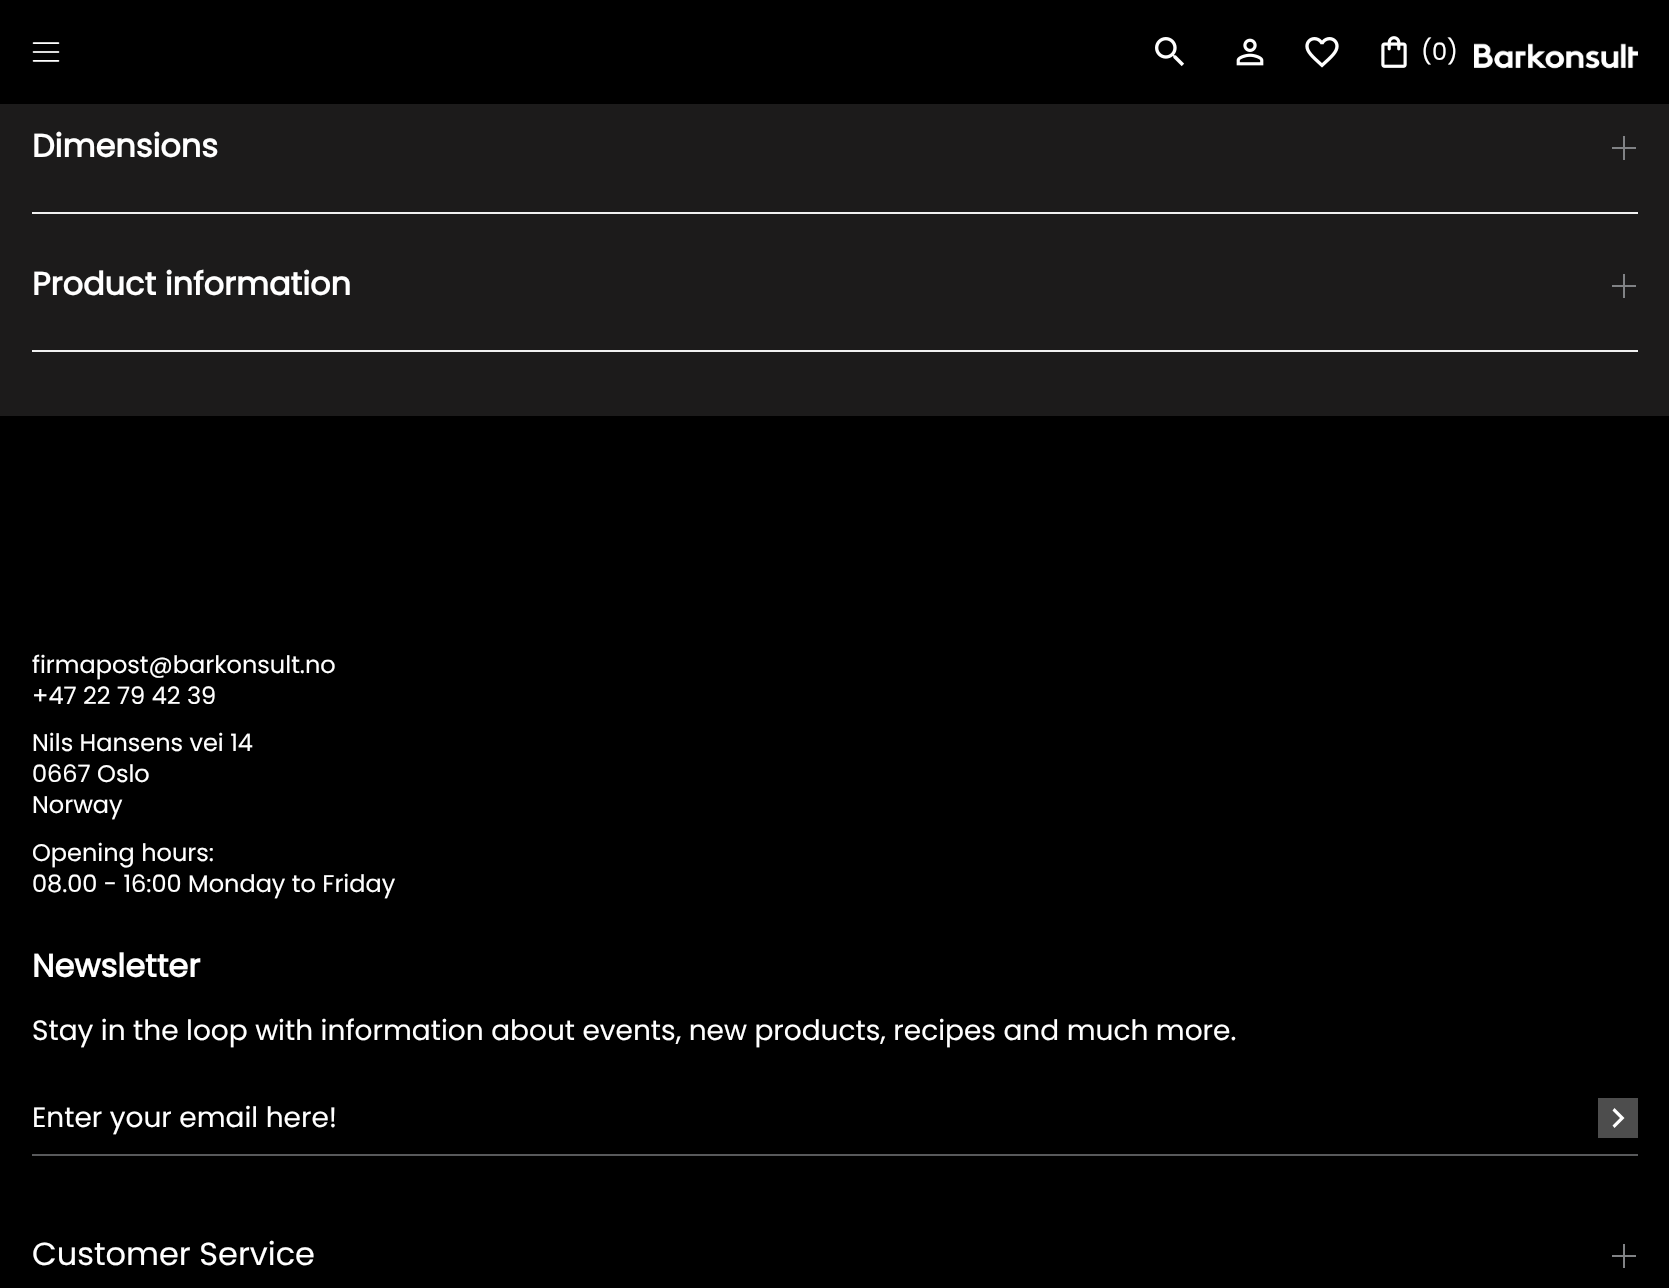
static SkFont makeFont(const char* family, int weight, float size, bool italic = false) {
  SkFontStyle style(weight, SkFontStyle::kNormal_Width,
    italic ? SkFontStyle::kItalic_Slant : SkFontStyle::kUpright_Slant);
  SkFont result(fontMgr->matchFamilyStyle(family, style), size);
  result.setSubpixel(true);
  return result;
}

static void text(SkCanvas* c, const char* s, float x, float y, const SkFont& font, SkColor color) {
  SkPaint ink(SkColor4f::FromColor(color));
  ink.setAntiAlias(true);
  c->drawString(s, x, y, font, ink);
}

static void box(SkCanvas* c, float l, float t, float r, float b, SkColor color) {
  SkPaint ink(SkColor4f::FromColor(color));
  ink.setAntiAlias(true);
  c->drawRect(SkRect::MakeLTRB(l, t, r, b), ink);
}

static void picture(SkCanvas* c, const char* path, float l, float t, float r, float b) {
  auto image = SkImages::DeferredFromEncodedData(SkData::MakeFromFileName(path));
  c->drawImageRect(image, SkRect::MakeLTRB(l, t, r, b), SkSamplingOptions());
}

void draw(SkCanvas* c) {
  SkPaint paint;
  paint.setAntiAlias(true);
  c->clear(0xff000000);
  picture(c, "img_01.png", 32, 42, 60, 62);
  picture(c, "img_02.png", 1155, 37, 1185, 67);
  picture(c, "img_03.png", 1236, 38, 1264, 66);
  picture(c, "img_04.png", 1305, 37, 1339, 68);
  picture(c, "img_05.png", 1381, 36, 1407, 68);
  SkFont face1 = makeFont("Poppins", 400, 24);
  text(c, "(0)", 1421, 60, face1, 0xffffffff);
  picture(c, "img_06.png", 1474, 43, 1638, 69);
  box(c, 0, 104, 1669, 416, 0xff1c1b1b);
  box(c, 32, 212, 1638, 214, 0xfff1f1f1);
  SkFont face2 = makeFont("Poppins", 700, 32);
  text(c, "Dimensions", 32, 157, face2, 0xffffffff);
  box(c, 1623, 136, 1625, 160, 0xff808285);
  box(c, 1612, 147, 1636, 149, 0xff808285);
  box(c, 32, 350, 1638, 352, 0xfff1f1f1);
  text(c, "Product information", 32, 295, face2, 0xffffffff);
  box(c, 1623, 274, 1625, 298, 0xff808285);
  box(c, 1612, 285, 1636, 287, 0xff808285);
  text(c, "firmapost@barkonsult.no", 32, 673, face1, 0xffffffff);
  text(c, "+47 22 79 42 39", 32, 704, face1, 0xffffffff);
  text(c, "Nils Hansens vei 14", 32, 751, face1, 0xffffffff);
  text(c, "0667 Oslo", 32, 782, face1, 0xffffffff);
  text(c, "Norway", 32, 813, face1, 0xffffffff);
  text(c, "Opening hours:", 32, 861, face1, 0xffffffff);
  text(c, "08.00 - 16:00 Monday to Friday", 32, 892, face1, 0xffffffff);
  text(c, "Newsletter", 32, 977, face2, 0xffffffff);
  SkFont face3 = makeFont("Poppins", 400, 28);
  text(c, "Stay in the loop with information about events, new products, recipes and much more.", 32, 1040, face3, 0xffffffff);
  box(c, 32, 1154, 1638, 1156, 0xff58595b);
  text(c, "Enter your email here!", 32, 1127, face3, 0xffffffff);
  box(c, 1598, 1098, 1638, 1138, 0xff4d4d4d);
  paint.setColor(0xffffffff);
  c->drawPath(SkPathBuilder().moveTo(1612.5f, 1125.5f).lineTo(1620, 1118).lineTo(1612.5f, 1110.5f).lineTo(1614.5f, 1108).lineTo(1624.5f, 1118).lineTo(1614.5f, 1128).close().detach(), paint);
  SkFont face4 = makeFont("Poppins", 400, 32);
  text(c, "Customer Service", 32, 1265, face4, 0xffffffff);
  box(c, 1623, 1244, 1625, 1268, 0xff808285);
  box(c, 1612, 1255, 1636, 1257, 0xff808285);
}
